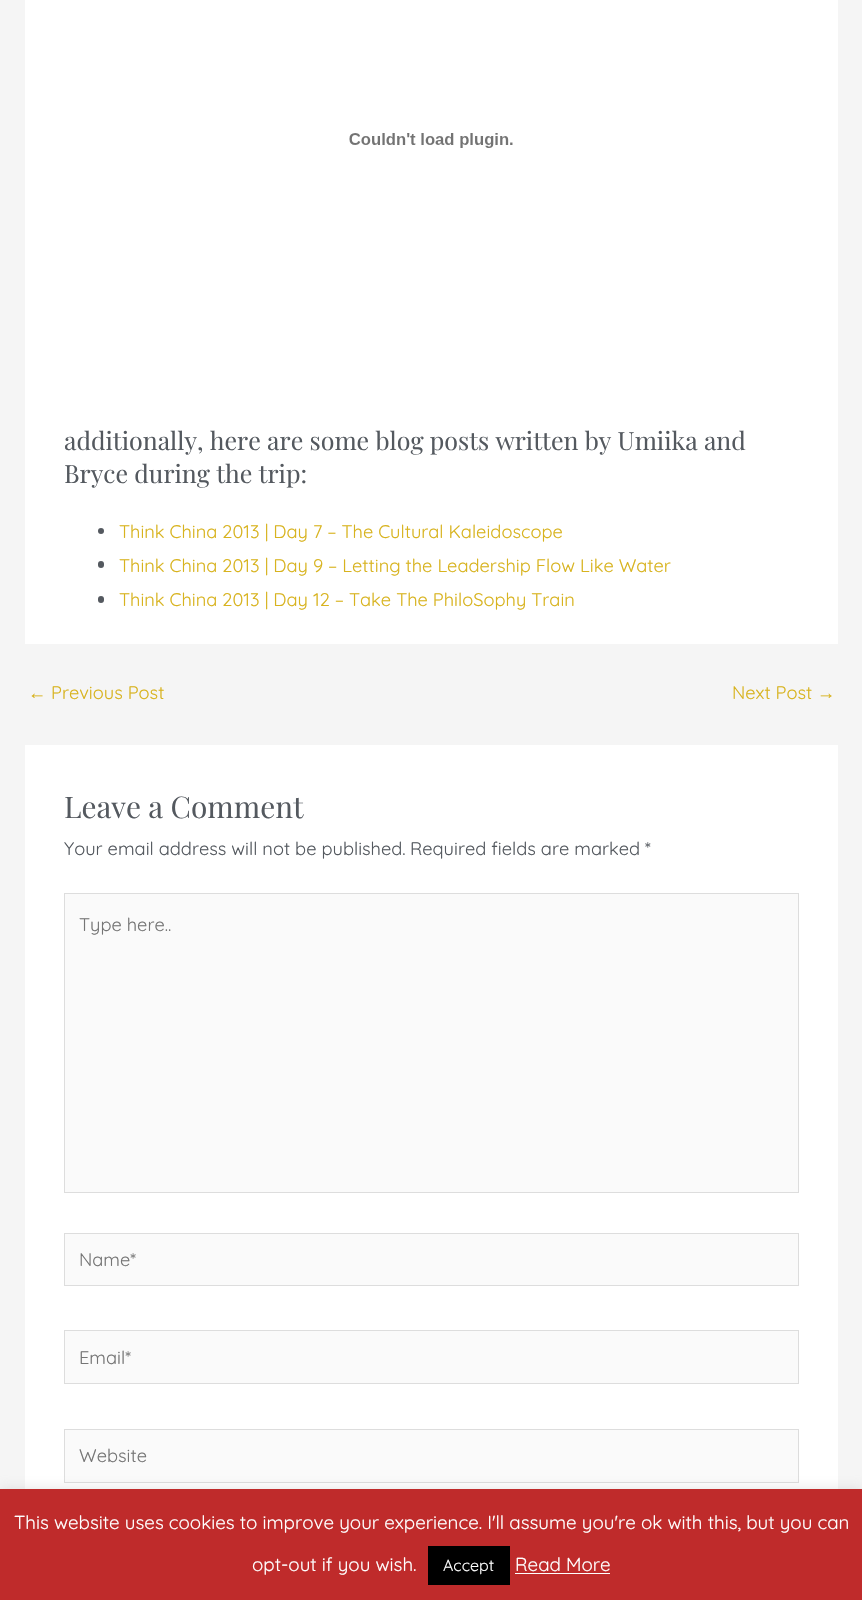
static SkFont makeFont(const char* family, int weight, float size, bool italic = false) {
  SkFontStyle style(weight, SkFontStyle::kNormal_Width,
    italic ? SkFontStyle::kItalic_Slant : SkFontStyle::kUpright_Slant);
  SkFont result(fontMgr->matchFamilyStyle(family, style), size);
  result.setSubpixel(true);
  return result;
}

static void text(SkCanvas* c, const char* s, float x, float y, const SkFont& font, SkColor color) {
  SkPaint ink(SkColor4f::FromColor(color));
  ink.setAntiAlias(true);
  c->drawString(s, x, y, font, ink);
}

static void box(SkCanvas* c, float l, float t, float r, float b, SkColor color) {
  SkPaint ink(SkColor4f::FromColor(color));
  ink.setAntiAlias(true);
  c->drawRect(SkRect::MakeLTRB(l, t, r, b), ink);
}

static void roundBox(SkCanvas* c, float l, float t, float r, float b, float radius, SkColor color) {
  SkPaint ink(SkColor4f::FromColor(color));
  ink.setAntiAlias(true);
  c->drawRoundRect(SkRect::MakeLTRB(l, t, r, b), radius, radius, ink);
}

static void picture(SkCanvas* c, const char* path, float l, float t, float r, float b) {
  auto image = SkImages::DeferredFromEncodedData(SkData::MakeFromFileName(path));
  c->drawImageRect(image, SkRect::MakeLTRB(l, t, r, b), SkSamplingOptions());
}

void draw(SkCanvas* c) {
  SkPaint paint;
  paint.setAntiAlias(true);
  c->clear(0xfff5f5f5);
  box(c, 25, 0, 838, 644, 0xffffffff);
  picture(c, "img_01.png", 349, 133, 513, 148);
  SkFont face1 = makeFont("Playfair Display", 400, 25);
  text(c, "additionally, here are some blog posts written by Umiika and", 64, 450, face1, 0xff54595f);
  text(c, "Bryce during the trip:", 64, 483, face1, 0xff54595f);
  paint.setColor(0xff54595f);
  c->drawCircle(101, 531, 3, paint);
  SkFont face2 = makeFont("Quicksand", 300, 18.25f);
  text(c, "Think China 2013 | Day 7 – The Cultural Kaleidoscope", 119, 538, face2, 0xffd8b31e);
  roundBox(c, 98, 561, 104, 568, 3, 0xff54595f);
  text(c, "Think China 2013 | Day 9 – Letting the Leadership Flow Like Water", 119, 572, face2, 0xffd8b31e);
  roundBox(c, 98, 596, 104, 603, 3, 0xff54595f);
  text(c, "Think China 2013 | Day 12 – Take The PhiloSophy Train", 119, 606, face2, 0xffd8b31e);
  SkFont face3 = makeFont("Liberation Sans", 400, 18.25f);
  text(c, "←", 28, 699, face3, 0xffd8b31e);
  text(c, "Previous Post", 51, 699, face2, 0xffd8b31e);
  text(c, "Next Post", 732, 699, face2, 0xffd8b31e);
  text(c, "→", 817, 699, face3, 0xffd8b31e);
  box(c, 25, 745, 838, 1489, 0xffffffff);
  SkFont face4 = makeFont("Playfair Display", 400, 29.75f);
  text(c, "Leave a Comment", 64, 818, face4, 0xff54595f);
  text(c, "Your email address will not be published.", 64, 855, face2, 0xff54595f);
  text(c, "Required fields are marked *", 410, 855, face2, 0xff54595f);
  paint.setColor(0xfffafafa);
  c->drawRect(SkRect::MakeLTRB(64.5f, 893.5f, 798.5f, 1192.5f), paint);
  paint.setStyle(SkPaint::kStroke_Style);
  paint.setStrokeWidth(1);
  paint.setColor(0xffdddddd);
  c->drawRect(SkRect::MakeLTRB(64.5f, 893.5f, 798.5f, 1192.5f), paint);
  text(c, "Type here..", 79, 931, face2, 0xff757575);
  paint.setStyle(SkPaint::kFill_Style);
  paint.setColor(0xfffafafa);
  c->drawRect(SkRect::MakeLTRB(64.5f, 1233.5f, 798.5f, 1285.5f), paint);
  paint.setStyle(SkPaint::kStroke_Style);
  paint.setColor(0xffdddddd);
  c->drawRect(SkRect::MakeLTRB(64.5f, 1233.5f, 798.5f, 1285.5f), paint);
  text(c, "Name*", 79, 1266, face2, 0xff757575);
  paint.setStyle(SkPaint::kFill_Style);
  paint.setColor(0xfffafafa);
  c->drawRect(SkRect::MakeLTRB(64.5f, 1330.5f, 798.5f, 1383.5f), paint);
  paint.setStyle(SkPaint::kStroke_Style);
  paint.setColor(0xffdddddd);
  c->drawRect(SkRect::MakeLTRB(64.5f, 1330.5f, 798.5f, 1383.5f), paint);
  text(c, "Email*", 79, 1364, face2, 0xff757575);
  paint.setStyle(SkPaint::kFill_Style);
  paint.setColor(0xfffafafa);
  c->drawRect(SkRect::MakeLTRB(64.5f, 1429.5f, 798.5f, 1482.5f), paint);
  paint.setStyle(SkPaint::kStroke_Style);
  paint.setColor(0xffdddddd);
  c->drawRect(SkRect::MakeLTRB(64.5f, 1429.5f, 798.5f, 1482.5f), paint);
  text(c, "Website", 79, 1462, face2, 0xff757575);
  paint.setStyle(SkPaint::kFill_Style);
  paint.setColor(0x4dacabab);
  paint.setMaskFilter(SkMaskFilter::MakeBlur(kNormal_SkBlurStyle, 6));
  c->drawRect(SkRect::MakeLTRB(0, 1488, 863, 1599), paint);
  paint.setMaskFilter(nullptr);
  box(c, 0, 1489, 862, 1600, 0xffbf2b2b);
  SkFont face5 = makeFont("Quicksand", 300, 18.75f);
  text(c, "This website uses cookies to improve your experience. I'll assume you're ok with this, but you can", 14, 1529, face5, 0xffffffff);
  text(c, "opt-out if you wish.", 252, 1571, face5, 0xffffffff);
  box(c, 428, 1546, 510, 1585, 0xff000000);
  SkFont face6 = makeFont("Quicksand", 300, 16);
  text(c, "Accept", 443, 1571, face6, 0xffffffff);
  text(c, "Read More", 515, 1571, face5, 0xffffffff);
  box(c, 515, 1573, 610, 1574, 0xffffffff);
}
